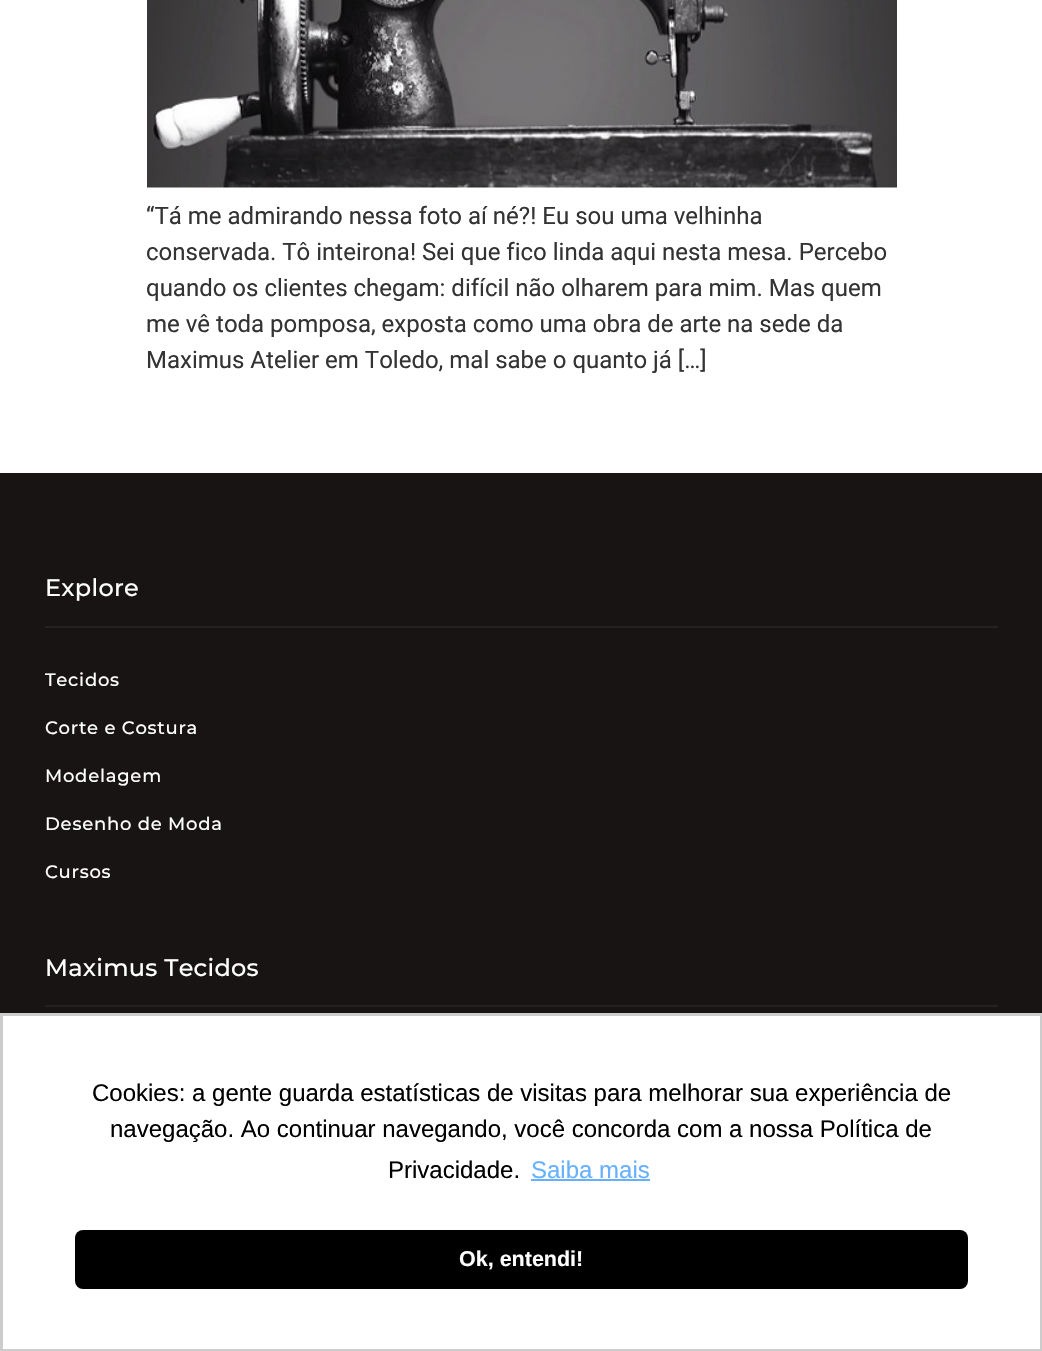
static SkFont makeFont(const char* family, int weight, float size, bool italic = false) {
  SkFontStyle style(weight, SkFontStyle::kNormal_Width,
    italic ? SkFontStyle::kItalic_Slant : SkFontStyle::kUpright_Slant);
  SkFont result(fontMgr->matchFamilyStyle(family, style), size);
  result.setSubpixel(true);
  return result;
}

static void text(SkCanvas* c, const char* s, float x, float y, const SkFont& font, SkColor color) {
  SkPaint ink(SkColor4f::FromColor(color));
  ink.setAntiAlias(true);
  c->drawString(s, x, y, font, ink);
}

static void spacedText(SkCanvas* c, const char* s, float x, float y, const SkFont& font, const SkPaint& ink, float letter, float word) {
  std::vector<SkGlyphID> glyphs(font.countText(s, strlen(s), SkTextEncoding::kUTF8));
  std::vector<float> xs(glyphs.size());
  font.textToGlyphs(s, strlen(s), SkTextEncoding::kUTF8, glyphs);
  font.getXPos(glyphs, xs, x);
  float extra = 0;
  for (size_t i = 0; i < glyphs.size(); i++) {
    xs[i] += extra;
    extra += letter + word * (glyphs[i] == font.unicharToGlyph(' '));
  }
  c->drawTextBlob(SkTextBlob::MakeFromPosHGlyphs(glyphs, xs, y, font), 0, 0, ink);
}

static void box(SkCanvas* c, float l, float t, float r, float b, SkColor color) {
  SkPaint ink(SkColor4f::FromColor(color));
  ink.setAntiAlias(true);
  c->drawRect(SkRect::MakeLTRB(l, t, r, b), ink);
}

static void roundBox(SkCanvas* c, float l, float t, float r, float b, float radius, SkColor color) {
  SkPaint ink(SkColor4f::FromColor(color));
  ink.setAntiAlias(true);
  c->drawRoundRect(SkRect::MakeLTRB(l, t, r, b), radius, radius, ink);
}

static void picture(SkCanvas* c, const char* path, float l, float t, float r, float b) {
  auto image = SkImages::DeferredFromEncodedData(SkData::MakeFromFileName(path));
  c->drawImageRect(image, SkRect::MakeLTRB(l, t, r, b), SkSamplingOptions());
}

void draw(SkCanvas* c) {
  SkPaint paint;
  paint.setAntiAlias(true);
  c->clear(0xffffffff);
  picture(c, "img_01.png", 147, 0, 897, 188);
  SkFont face1 = makeFont("Roboto", 400, 24);
  text(c, "“Tá me admirando nessa foto aí né?! Eu sou uma velhinha", 146, 224, face1, 0xff333333);
  text(c, "conservada. Tô inteirona! Sei que fico linda aqui nesta mesa. Percebo", 146, 260, face1, 0xff333333);
  text(c, "quando os clientes chegam: difícil não olharem para mim. Mas quem", 146, 296, face1, 0xff333333);
  text(c, "me vê toda pomposa, exposta como uma obra de arte na sede da", 146, 332, face1, 0xff333333);
  text(c, "Maximus Atelier em Toledo, mal sabe o quanto já […]", 146, 368, face1, 0xff333333);
  box(c, 0, 473, 1042, 1013, 0xff171413);
  box(c, 45, 626, 998, 628, 0xff242221);
  SkFont face2 = makeFont("Montserrat", 500, 24);
  paint.setColor(0xffffffff);
  spacedText(c, "Explore", 45, 596, face2, paint, 0.25f, 0);
  SkFont face3 = makeFont("Montserrat", 500, 18);
  spacedText(c, "Tecidos", 45, 686, face3, paint, 0.75f, 0);
  spacedText(c, "Corte e Costura", 45, 734, face3, paint, 0.75f, 0);
  spacedText(c, "Modelagem", 45, 782, face3, paint, 0.75f, 0);
  spacedText(c, "Desenho de Moda", 45, 830, face3, paint, 0.75f, 0);
  spacedText(c, "Cursos", 45, 878, face3, paint, 0.75f, 0);
  box(c, 45, 1005, 998, 1007, 0xff242221);
  spacedText(c, "Maximus Tecidos", 45, 976, face2, paint, 0.25f, 0);
  paint.setStyle(SkPaint::kStroke_Style);
  paint.setStrokeWidth(3);
  paint.setColor(0xffcccccc);
  c->drawRect(SkRect::MakeLTRB(1.5f, 1014.5f, 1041.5f, 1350.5f), paint);
  SkFont face4 = makeFont("Liberation Sans", 400, 24);
  text(c, "Cookies: a gente guarda estatísticas de visitas para melhorar sua experiência de", 92, 1101, face4, 0xff000000);
  text(c, "navegação. Ao continuar navegando, você concorda com a nossa Política de", 110, 1137, face4, 0xff000000);
  text(c, "Privacidade.", 388, 1178, face4, 0xff000000);
  text(c, "Saiba mais", 531, 1178, face4, 0xff66b0ff);
  box(c, 531, 1179, 650, 1181, 0xff66b0ff);
  roundBox(c, 75, 1230, 968, 1289, 8, 0xff000000);
  SkFont face5 = makeFont("Liberation Sans", 700, 21.5f);
  text(c, "Ok, entendi!", 459, 1266, face5, 0xffffffff);
}
